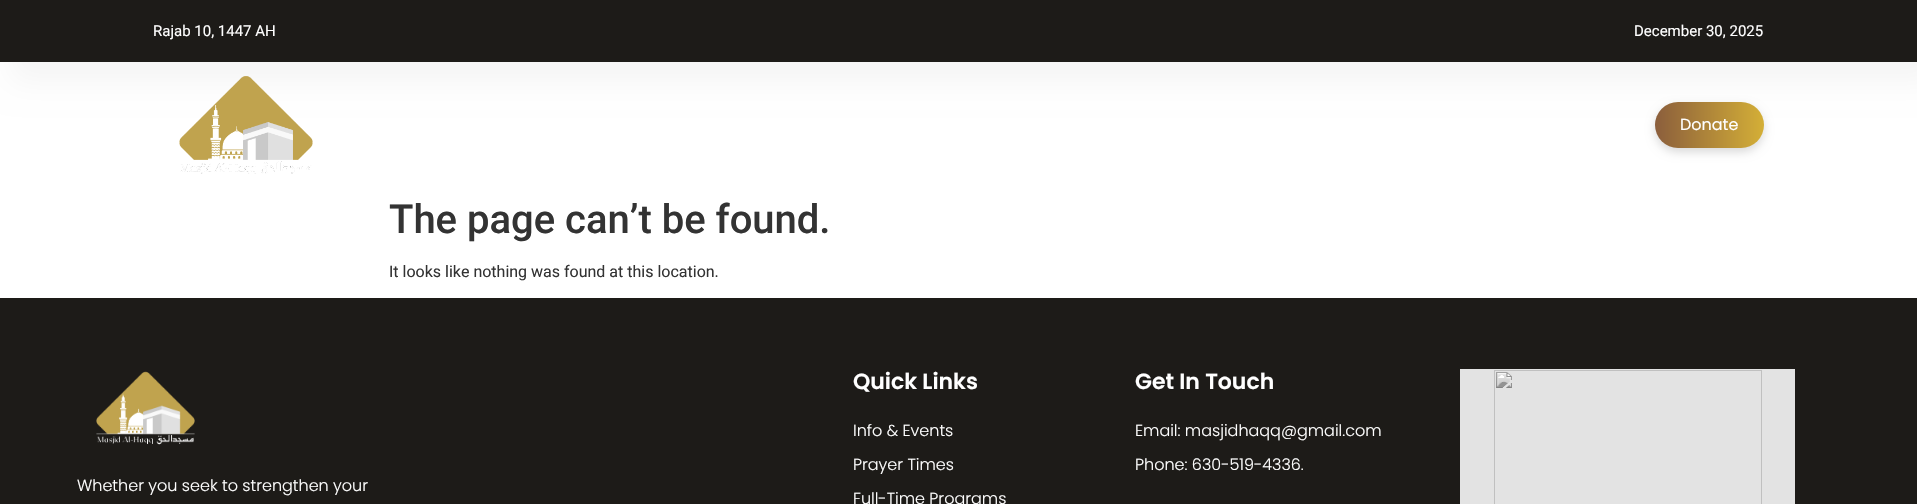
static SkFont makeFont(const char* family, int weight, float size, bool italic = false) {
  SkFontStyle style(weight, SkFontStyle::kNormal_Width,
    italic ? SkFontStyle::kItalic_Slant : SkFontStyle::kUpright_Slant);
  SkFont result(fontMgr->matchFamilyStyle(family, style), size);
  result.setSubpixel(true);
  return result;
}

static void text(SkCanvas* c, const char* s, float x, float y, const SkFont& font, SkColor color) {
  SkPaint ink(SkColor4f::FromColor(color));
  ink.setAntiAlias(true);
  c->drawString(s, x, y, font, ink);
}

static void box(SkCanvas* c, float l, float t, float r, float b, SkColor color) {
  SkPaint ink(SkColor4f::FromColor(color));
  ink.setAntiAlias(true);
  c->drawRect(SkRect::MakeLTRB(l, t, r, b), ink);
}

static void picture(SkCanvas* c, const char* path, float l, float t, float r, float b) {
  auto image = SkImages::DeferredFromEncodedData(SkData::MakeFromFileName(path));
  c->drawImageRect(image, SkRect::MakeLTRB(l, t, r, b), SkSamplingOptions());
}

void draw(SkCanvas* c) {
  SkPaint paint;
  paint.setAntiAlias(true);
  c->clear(0xffffffff);
  paint.setColor(0x0a000000);
  paint.setMaskFilter(SkMaskFilter::MakeBlur(kNormal_SkBlurStyle, 15));
  c->drawRect(SkRect::MakeLTRB(10, 10, 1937, 82), paint);
  paint.setMaskFilter(nullptr);
  box(c, 0, 0, 1917, 62, 0xff1d1b18);
  SkFont face1 = makeFont("Roboto", 400, 15);
  text(c, "Rajab 10, 1447 AH", 153, 36, face1, 0xffffffff);
  text(c, "December 30, 2025", 1634, 36, face1, 0xffffffff);
  picture(c, "img_01.png", 179, 76, 313, 174);
  paint.setColor(0x26000000);
  paint.setMaskFilter(SkMaskFilter::MakeBlur(kNormal_SkBlurStyle, 5));
  c->drawRoundRect(SkRect::MakeLTRB(1655, 106, 1764, 152), 23, 23, paint);
  paint.setMaskFilter(nullptr);
  {
    const SkColor colors[] = {0xffd4af37, 0xff8b5e3c};
    const float stops[] = {0, 1};
    const SkPoint ends[] = {{1764, 125}, {1655, 125}};
    paint.setShader(SkGradientShader::MakeLinear(ends, colors, stops, 2, SkTileMode::kClamp));
    paint.setAlpha(255);
  }
  c->drawRoundRect(SkRect::MakeLTRB(1655, 102, 1764, 148), 23, 23, paint);
  SkFont face2 = makeFont("Poppins", 400, 16);
  text(c, "Donate", 1680, 130, face2, 0xffffffff);
  SkFont face3 = makeFont("Roboto", 500, 40);
  text(c, "The page can’t be found.", 389, 233, face3, 0xff333333);
  SkFont face4 = makeFont("Roboto", 400, 16);
  text(c, "It looks like nothing was found at this location.", 389, 277, face4, 0xff333333);
  box(c, 0, 298, 1917, 504, 0xff1d1b18);
  SkFont face5 = makeFont("Poppins", 600, 22);
  text(c, "Quick Links", 853, 389, face5, 0xffffffff);
  SkFont face6 = makeFont("Poppins", 300, 16);
  text(c, "Info & Events", 853, 436, face6, 0xffffffff);
  text(c, "Prayer Times", 853, 470, face6, 0xffffffff);
  text(c, "Full-Time Programs", 853, 504, face6, 0xffffffff);
  text(c, "Get In Touch", 1135, 389, face5, 0xffffffff);
  text(c, "Email: masjidhaqq@gmail.com", 1135, 436, face6, 0xffffffff);
  text(c, "Phone: 630-519-4336.", 1135, 470, face6, 0xffffffff);
  picture(c, "img_02.png", 1460, 369, 1795, 504);
  picture(c, "img_03.png", 96, 371, 195, 445);
  text(c, "Whether you seek to strengthen your", 77, 491, face6, 0xffffffff);
}
